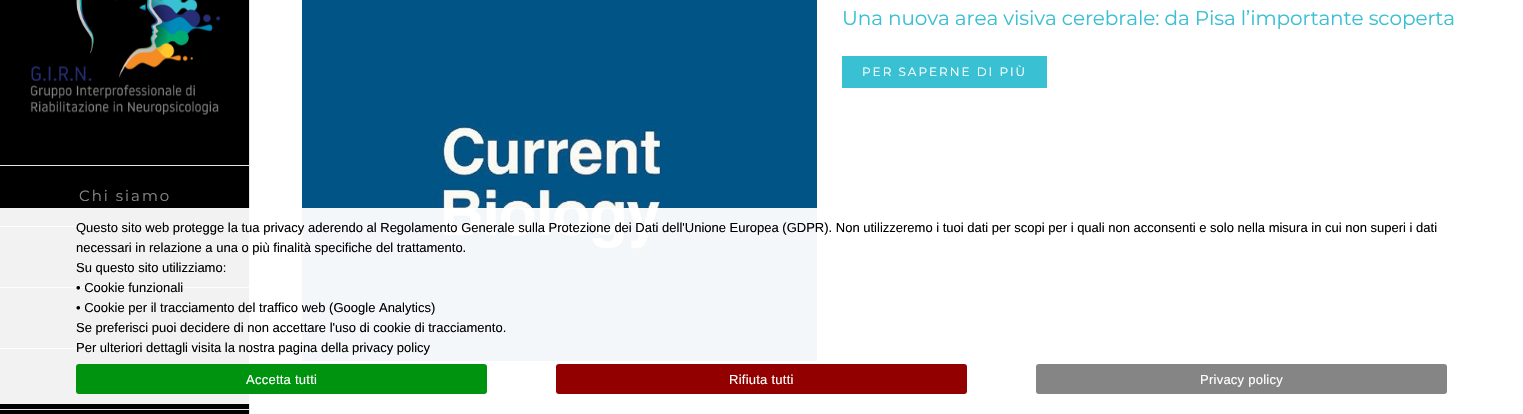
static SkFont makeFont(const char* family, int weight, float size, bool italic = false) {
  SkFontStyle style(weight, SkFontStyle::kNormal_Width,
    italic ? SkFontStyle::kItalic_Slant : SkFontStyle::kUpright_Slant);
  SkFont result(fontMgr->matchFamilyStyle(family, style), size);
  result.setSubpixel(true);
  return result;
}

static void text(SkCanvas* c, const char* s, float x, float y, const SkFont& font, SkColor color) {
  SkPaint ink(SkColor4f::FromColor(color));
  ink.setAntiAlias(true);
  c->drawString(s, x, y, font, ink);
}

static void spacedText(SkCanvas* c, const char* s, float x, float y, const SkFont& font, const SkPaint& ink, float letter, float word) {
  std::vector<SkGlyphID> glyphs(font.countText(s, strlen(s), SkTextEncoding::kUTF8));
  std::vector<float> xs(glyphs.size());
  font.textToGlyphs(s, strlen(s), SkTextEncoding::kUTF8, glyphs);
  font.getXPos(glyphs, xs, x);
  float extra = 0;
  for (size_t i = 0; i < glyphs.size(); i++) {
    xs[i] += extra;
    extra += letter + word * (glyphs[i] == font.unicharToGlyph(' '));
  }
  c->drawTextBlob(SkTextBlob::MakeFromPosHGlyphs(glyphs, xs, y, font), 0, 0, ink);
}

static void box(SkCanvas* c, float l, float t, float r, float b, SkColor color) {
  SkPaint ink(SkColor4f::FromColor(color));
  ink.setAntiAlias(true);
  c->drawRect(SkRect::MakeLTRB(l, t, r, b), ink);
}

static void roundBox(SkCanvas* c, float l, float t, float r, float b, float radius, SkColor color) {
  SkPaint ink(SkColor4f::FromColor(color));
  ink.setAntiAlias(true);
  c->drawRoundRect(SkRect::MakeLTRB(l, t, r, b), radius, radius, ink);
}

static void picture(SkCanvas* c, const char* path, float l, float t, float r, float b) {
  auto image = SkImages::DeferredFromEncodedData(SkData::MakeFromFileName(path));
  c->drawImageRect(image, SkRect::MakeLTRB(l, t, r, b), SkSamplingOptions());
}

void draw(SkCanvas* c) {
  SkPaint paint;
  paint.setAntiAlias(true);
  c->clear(0xffffffff);
  picture(c, "img_01.png", 302, 0, 817, 361);
  SkFont face1 = makeFont("Montserrat", 400, 20);
  paint.setColor(0xff39c0d3);
  spacedText(c, "Una nuova area visiva cerebrale: da Pisa l’importante scoperta", 842, 25, face1, paint, -0.1f, 0);
  box(c, 842, 56, 1047, 88, 0xff39c0d3);
  SkFont face2 = makeFont("Montserrat", 400, 12);
  paint.setColor(0xffffffff);
  spacedText(c, "PER SAPERNE DI PIÙ", 862, 76, face2, paint, 2, 0);
  box(c, 0, 0, 249, 414, 0xff000000);
  box(c, 249, 0, 250, 414, 0xffe5e5e5);
  picture(c, "img_02.png", 30, 0, 220, 115);
  box(c, 0, 165, 250, 166, 0xffe5e5e5);
  box(c, 0, 226, 250, 227, 0xffe5e5e5);
  SkFont face3 = makeFont("Montserrat", 400, 15);
  paint.setColor(0xff878785);
  spacedText(c, "Chi siamo", 79, 201, face3, paint, 2, 0);
  box(c, 0, 287, 250, 288, 0xffe5e5e5);
  box(c, 0, 348, 250, 349, 0xffe5e5e5);
  box(c, 0, 409, 250, 410, 0xffe5e5e5);
  box(c, 0, 208, 817, 404, 0xf2ffffff);
  SkFont face4 = makeFont("Liberation Sans", 400, 13);
  text(c, "Questo sito web protegge la tua privacy aderendo al Regolamento Generale sulla Protezione dei Dati dell'Unione Europea (GDPR). Non utilizzeremo i tuoi dati per scopi per i quali non acconsenti e solo nella misura in cui non superi i dati", 76, 232, face4, 0xff000000);
  text(c, "necessari in relazione a una o più finalità specifiche del trattamento.", 76, 252, face4, 0xff000000);
  text(c, "Su questo sito utilizziamo:", 76, 272, face4, 0xff000000);
  text(c, "• Cookie funzionali", 76, 292, face4, 0xff000000);
  text(c, "• Cookie per il tracciamento del traffico web (Google Analytics)", 76, 312, face4, 0xff000000);
  text(c, "Se preferisci puoi decidere di non accettare l'uso di cookie di tracciamento.", 76, 332, face4, 0xff000000);
  text(c, "Per ulteriori dettagli visita la nostra pagina della privacy policy", 76, 352, face4, 0xff000000);
  roundBox(c, 76, 364, 487, 394, 3, 0xff00930f);
  paint.setColor(0xffffffff);
  spacedText(c, "Accetta tutti", 246, 384, face4, paint, 0.25f, 0);
  roundBox(c, 556, 364, 967, 394, 3, 0xff930000);
  spacedText(c, "Rifiuta tutti", 729, 384, face4, paint, 0.25f, 0);
  roundBox(c, 1036, 364, 1447, 394, 3, 0xff858585);
  spacedText(c, "Privacy policy", 1200, 384, face4, paint, 0.25f, 0);
}
